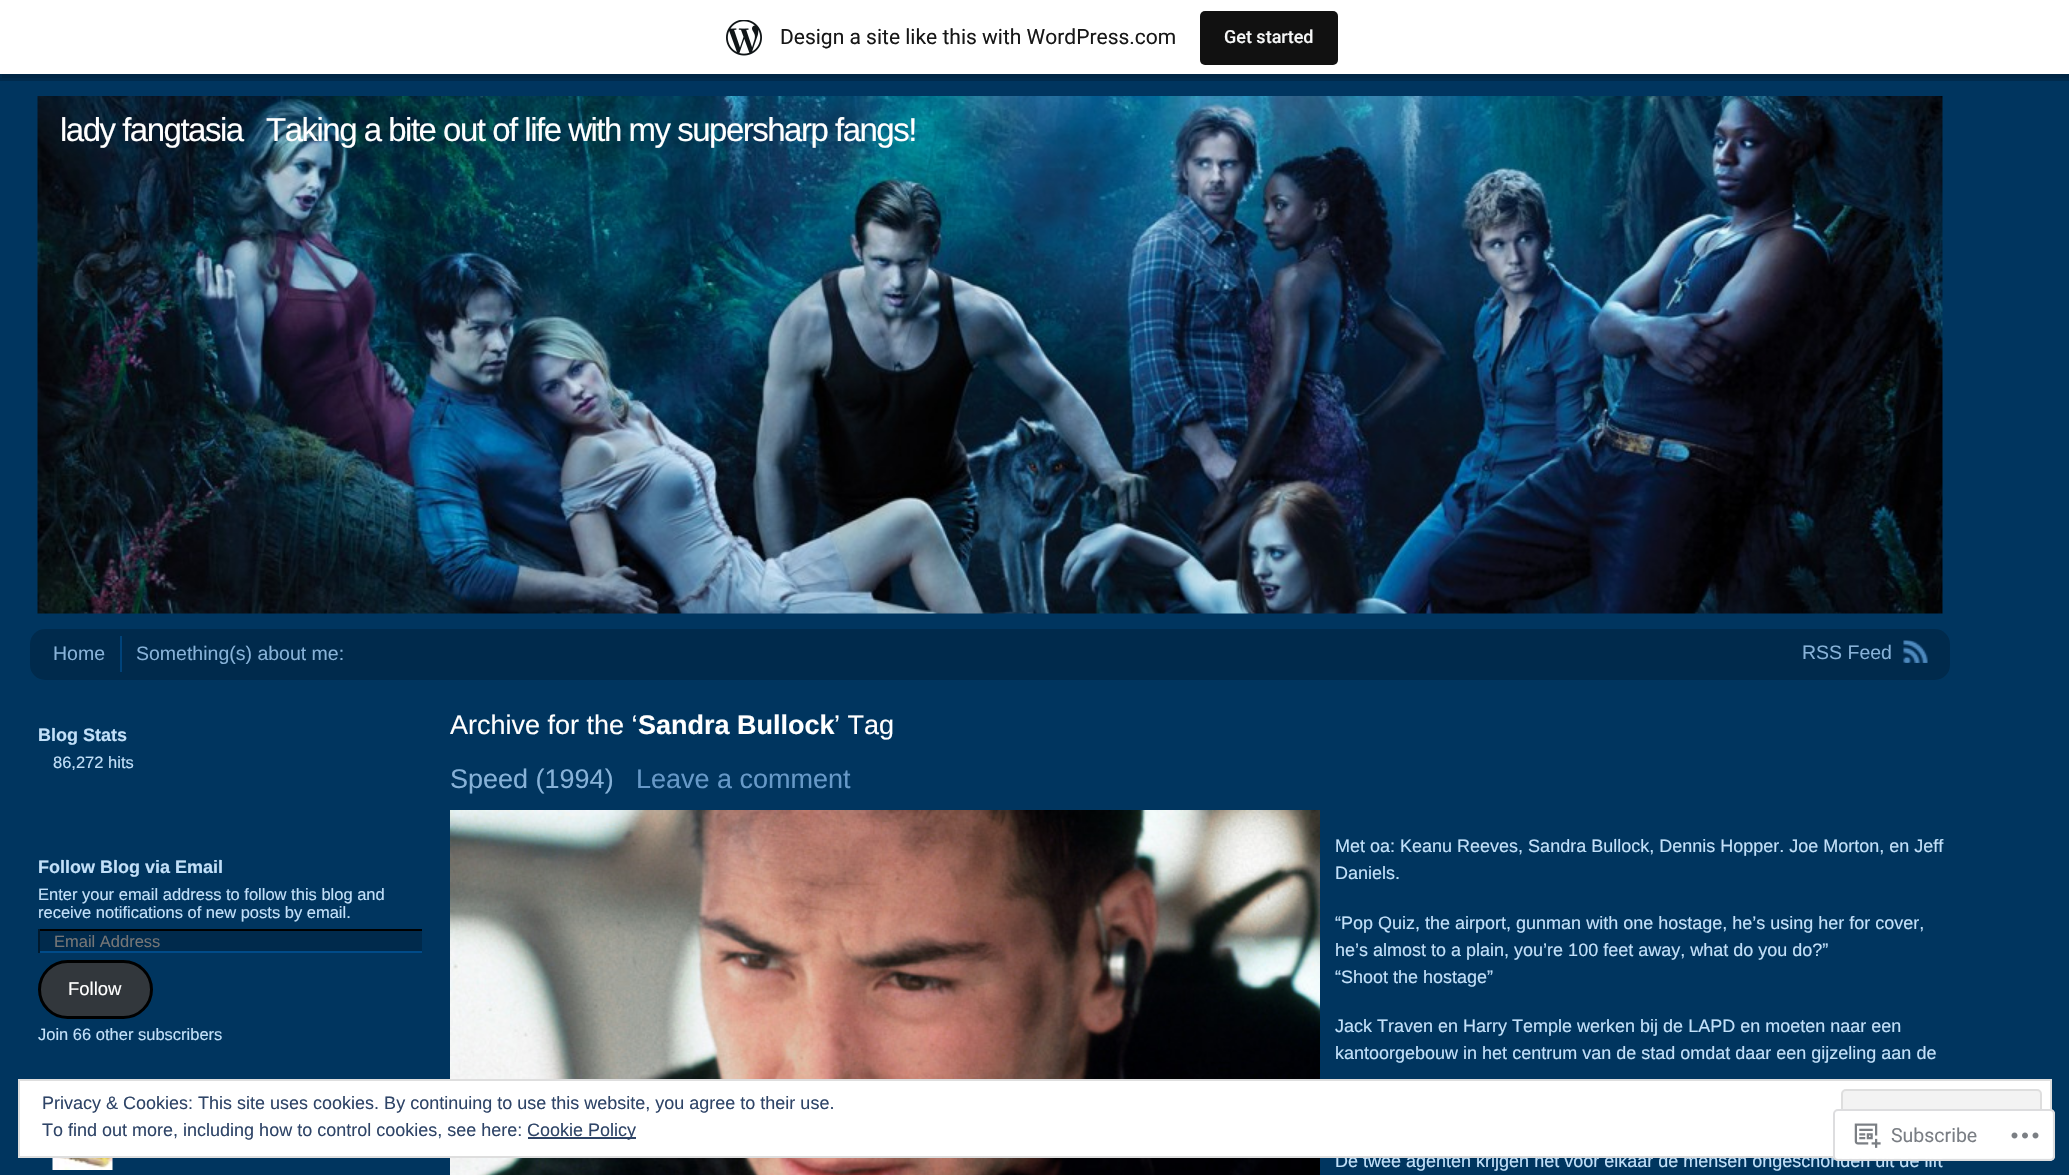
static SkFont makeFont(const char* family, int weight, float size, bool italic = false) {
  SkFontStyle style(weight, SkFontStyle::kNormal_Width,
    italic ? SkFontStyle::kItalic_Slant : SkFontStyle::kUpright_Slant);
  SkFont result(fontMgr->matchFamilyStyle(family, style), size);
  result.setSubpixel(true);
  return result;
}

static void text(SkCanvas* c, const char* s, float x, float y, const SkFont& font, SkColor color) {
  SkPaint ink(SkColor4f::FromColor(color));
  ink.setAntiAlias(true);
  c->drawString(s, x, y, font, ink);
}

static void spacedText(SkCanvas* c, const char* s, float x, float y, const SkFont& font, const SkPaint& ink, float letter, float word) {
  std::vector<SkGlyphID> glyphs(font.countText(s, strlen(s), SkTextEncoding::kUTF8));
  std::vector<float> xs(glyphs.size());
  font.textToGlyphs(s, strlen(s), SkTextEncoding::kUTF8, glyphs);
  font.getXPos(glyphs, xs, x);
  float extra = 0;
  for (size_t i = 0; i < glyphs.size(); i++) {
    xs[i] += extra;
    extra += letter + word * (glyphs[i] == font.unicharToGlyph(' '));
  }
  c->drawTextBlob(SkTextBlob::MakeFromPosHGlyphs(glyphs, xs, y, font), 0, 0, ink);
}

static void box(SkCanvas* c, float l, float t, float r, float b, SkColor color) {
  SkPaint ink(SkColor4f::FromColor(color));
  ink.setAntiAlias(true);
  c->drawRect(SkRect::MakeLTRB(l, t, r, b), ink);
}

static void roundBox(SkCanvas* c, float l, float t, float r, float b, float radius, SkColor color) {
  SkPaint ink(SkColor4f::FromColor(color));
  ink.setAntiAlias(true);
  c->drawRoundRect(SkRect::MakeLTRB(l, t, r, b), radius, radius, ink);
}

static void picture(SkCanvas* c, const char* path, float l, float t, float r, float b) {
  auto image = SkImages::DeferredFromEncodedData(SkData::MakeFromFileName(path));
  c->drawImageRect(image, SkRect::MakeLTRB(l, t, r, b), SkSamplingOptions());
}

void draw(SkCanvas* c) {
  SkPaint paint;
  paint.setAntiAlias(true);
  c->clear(0xff00355f);
  box(c, 0, 74, 2069, 81, 0xff002a4c);
  paint.setColor(0xff002645);
  c->drawPath(SkPathBuilder().moveTo(2, 74).lineTo(2, 78).lineTo(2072, 78).lineTo(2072, 5).lineTo(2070, 5).lineTo(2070, 74).close().detach(), paint);
  box(c, 0, 0, 2069, 74, 0xffffffff);
  picture(c, "img_01.png", 726, 20, 762, 56);
  SkFont face1 = makeFont("Roboto", 400, 21);
  text(c, "Design a site like this with WordPress.com", 780, 44, face1, 0xff171717);
  roundBox(c, 1200, 11, 1338, 65, 5, 0xff111111);
  SkFont face2 = makeFont("Roboto", 500, 18);
  text(c, "Get started", 1224, 43, face2, 0xfff6f7f7);
  picture(c, "img_02.png", 37, 96, 1943, 614);
  SkFont face3 = makeFont("Liberation Sans", 400, 33);
  paint.setColor(0xffffffff);
  spacedText(c, "lady fangtasia", 60, 141, face3, paint, -1.5f, 0);
  spacedText(c, "Taking a bite out of life with my supersharp fangs!", 266, 141, face3, paint, -1.5f, 0);
  roundBox(c, 30, 629, 1950, 680, 15, 0xff002a4c);
  box(c, 120, 636, 122, 672, 0xff00437a);
  SkFont face4 = makeFont("Liberation Sans", 400, 19.5f);
  text(c, "Home", 53, 660, face4, 0xff87b2d8);
  text(c, "Something(s) about me:", 136, 660, face4, 0xff87b2d8);
  text(c, "RSS Feed", 1802, 659, face4, 0xff87b2d8);
  picture(c, "img_03.png", 1903, 640, 1928, 663);
  SkFont face5 = makeFont("Liberation Sans", 700, 18);
  text(c, "Blog Stats", 38, 741, face5, 0xffc2e0f9);
  SkFont face6 = makeFont("Liberation Sans", 400, 16.5f);
  text(c, "86,272 hits", 53, 768, face6, 0xffc2e0f9);
  text(c, "Follow Blog via Email", 38, 873, face5, 0xffc2e0f9);
  text(c, "Enter your email address to follow this blog and", 38, 900, face6, 0xffc2e0f9);
  text(c, "receive notifications of new posts by email.", 38, 918, face6, 0xffc2e0f9);
  box(c, 40, 931, 422, 951, 0xff002a4c);
  box(c, 38, 929, 422, 931, 0xff000000);
  box(c, 38, 951, 422, 953, 0xff004b89);
  box(c, 38, 929, 40, 953, 0xff00192d);
  text(c, "Email Address", 54, 947, face6, 0xff757575);
  paint.setColor(0xff32373c);
  c->drawRoundRect(SkRect::MakeLTRB(39.5f, 961.5f, 151.5f, 1017.5f), 28, 28, paint);
  paint.setStyle(SkPaint::kStroke_Style);
  paint.setStrokeWidth(3);
  paint.setColor(0xff000000);
  c->drawRoundRect(SkRect::MakeLTRB(39.5f, 961.5f, 151.5f, 1017.5f), 28, 28, paint);
  SkFont face7 = makeFont("Liberation Sans", 400, 18.5f);
  text(c, "Follow", 68, 995, face7, 0xffffffff);
  text(c, "Join 66 other subscribers", 38, 1040, face6, 0xffc2e0f9);
  picture(c, "img_04.png", 52, 1158, 113, 1170);
  SkFont face8 = makeFont("Liberation Sans", 400, 27);
  text(c, "Archive for the ‘", 450, 734, face8, 0xffffffff);
  SkFont face9 = makeFont("Liberation Sans", 700, 27);
  text(c, "Sandra Bullock", 638, 734, face9, 0xffffffff);
  text(c, "’ Tag", 834, 734, face8, 0xffffffff);
  text(c, "Speed (1994)", 450, 788, face8, 0xff87b2d8);
  text(c, "Leave a comment", 636, 788, face8, 0xff6799c8);
  picture(c, "img_05.png", 450, 810, 1320, 1175);
  SkFont face10 = makeFont("Liberation Sans", 400, 18);
  text(c, "Met oa: Keanu Reeves, Sandra Bullock, Dennis Hopper. Joe Morton, en Jeff", 1335, 852, face10, 0xffc2e0f9);
  text(c, "Daniels.", 1335, 879, face10, 0xffc2e0f9);
  text(c, "“Pop Quiz, the airport, gunman with one hostage, he’s using her for cover,", 1335, 929, face10, 0xffc2e0f9);
  text(c, "he’s almost to a plain, you’re 100 feet away, what do you do?”", 1335, 956, face10, 0xffc2e0f9);
  text(c, "“Shoot the hostage”", 1335, 983, face10, 0xffc2e0f9);
  text(c, "Jack Traven en Harry Temple werken bij de LAPD en moeten naar een", 1335, 1032, face10, 0xffc2e0f9);
  text(c, "kantoorgebouw in het centrum van de stad omdat daar een gijzeling aan de", 1335, 1059, face10, 0xffc2e0f9);
  text(c, "De twee agenten krijgen het voor elkaar de mensen ongeschonden uit de lift", 1335, 1167, face10, 0xffc2e0f9);
  paint.setStyle(SkPaint::kFill_Style);
  paint.setColor(0xffffffff);
  c->drawRect(SkRect::MakeLTRB(19, 1080, 2051, 1157), paint);
  paint.setStyle(SkPaint::kStroke_Style);
  paint.setStrokeWidth(2);
  paint.setColor(0xffdedede);
  c->drawRect(SkRect::MakeLTRB(19, 1080, 2051, 1157), paint);
  text(c, "Privacy & Cookies: This site uses cookies. By continuing to use this website, you agree to their use.", 42, 1109, face10, 0xff2e4467);
  paint.setStyle(SkPaint::kFill_Style);
  paint.setColor(0xfff3f3f3);
  c->drawRoundRect(SkRect::MakeLTRB(1842, 1090, 2041, 1147), 4, 4, paint);
  paint.setStyle(SkPaint::kStroke_Style);
  paint.setColor(0xffdedede);
  c->drawRoundRect(SkRect::MakeLTRB(1842, 1090, 2041, 1147), 4, 4, paint);
  text(c, "To find out more, including how to control cookies, see here:", 42, 1136, face10, 0xff2e4467);
  box(c, 528, 1137, 636, 1139, 0xff2e4467);
  text(c, "Cookie Policy", 527, 1136, face10, 0xff2e4467);
  roundBox(c, 1833, 1109, 2055, 1161, 5, 0xfaffffff);
  paint.setColor(0xfadcdcde);
  c->drawRoundRect(SkRect::MakeLTRB(1834, 1110, 2054, 1160), 4, 4, paint);
  picture(c, "img_06.png", 1854, 1123, 1881, 1148);
  SkFont face11 = makeFont("Roboto", 400, 19.5f);
  text(c, "Subscribe", 1891, 1142, face11, 0xff7a7e84);
  picture(c, "img_07.png", 2011, 1132, 2039, 1139);
}
